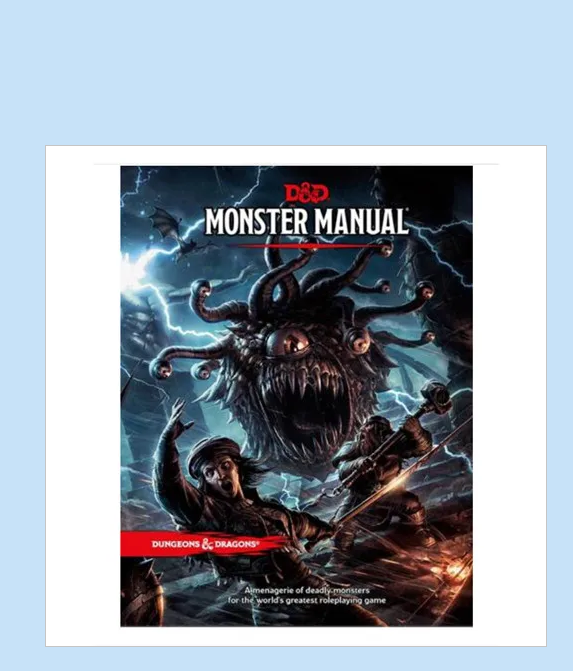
static void picture(SkCanvas* c, const char* path, float l, float t, float r, float b) {
  auto image = SkImages::DeferredFromEncodedData(SkData::MakeFromFileName(path));
  c->drawImageRect(image, SkRect::MakeLTRB(l, t, r, b), SkSamplingOptions());
}

void draw(SkCanvas* c) {
  SkPaint paint;
  paint.setAntiAlias(true);
  c->clear(0xffc7e2f8);
  paint.setStyle(SkPaint::kStroke_Style);
  paint.setStrokeWidth(1);
  paint.setColor(0xffc5c5c5);
  c->drawRect(SkRect::MakeLTRB(45.5f, 145.5f, 546.5f, 646.5f), paint);
  picture(c, "img_01.png", 46, 146, 546, 646);
}
